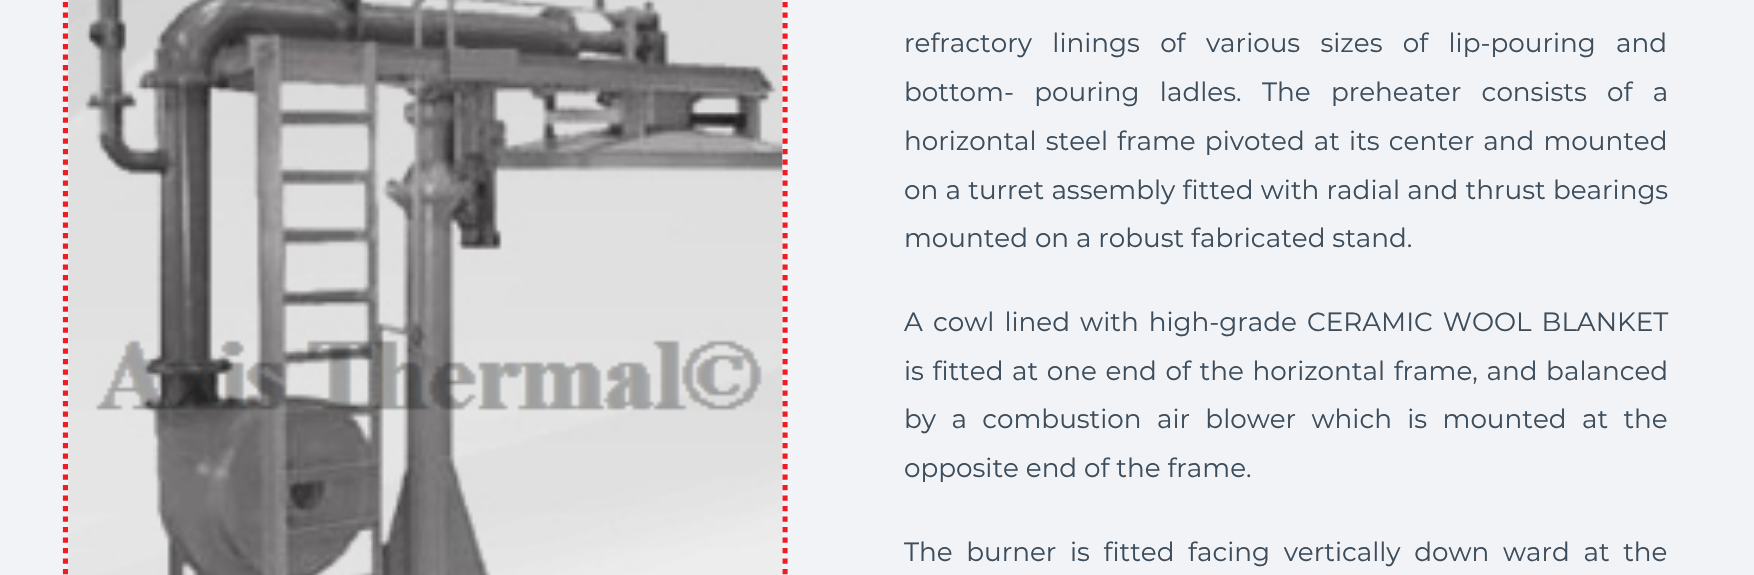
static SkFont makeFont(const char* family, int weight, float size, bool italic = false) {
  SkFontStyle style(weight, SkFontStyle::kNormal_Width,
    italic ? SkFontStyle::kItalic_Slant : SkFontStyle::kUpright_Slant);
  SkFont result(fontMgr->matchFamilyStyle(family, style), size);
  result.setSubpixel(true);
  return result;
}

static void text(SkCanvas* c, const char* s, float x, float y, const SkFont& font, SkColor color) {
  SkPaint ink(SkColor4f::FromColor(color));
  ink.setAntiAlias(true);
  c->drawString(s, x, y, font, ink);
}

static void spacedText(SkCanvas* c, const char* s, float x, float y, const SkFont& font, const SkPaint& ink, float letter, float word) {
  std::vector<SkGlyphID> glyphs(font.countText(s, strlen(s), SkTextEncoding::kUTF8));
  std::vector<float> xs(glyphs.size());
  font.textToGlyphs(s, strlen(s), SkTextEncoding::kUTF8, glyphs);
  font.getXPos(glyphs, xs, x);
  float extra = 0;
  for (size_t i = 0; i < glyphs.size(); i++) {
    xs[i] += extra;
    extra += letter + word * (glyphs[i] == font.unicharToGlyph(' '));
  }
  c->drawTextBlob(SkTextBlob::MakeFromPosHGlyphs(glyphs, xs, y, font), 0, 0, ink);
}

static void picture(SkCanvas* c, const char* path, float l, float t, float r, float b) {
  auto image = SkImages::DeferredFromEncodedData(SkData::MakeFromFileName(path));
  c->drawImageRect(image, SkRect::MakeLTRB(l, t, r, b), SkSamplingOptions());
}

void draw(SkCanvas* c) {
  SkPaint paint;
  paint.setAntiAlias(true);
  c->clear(0xfff1f3f7);
  paint.setStyle(SkPaint::kStroke_Style);
  paint.setStrokeWidth(5.2f);
  paint.setColor(0xffee1d22);
  paint.setPathEffect(SkDashPathEffect::Make({{5.25f, 5.25f}}, 0));
  c->drawPath(SkPathBuilder().moveTo(785, -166).lineTo(785, 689.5f).detach(), paint);
  paint.setPathEffect(nullptr);
  paint.setPathEffect(SkDashPathEffect::Make({{5.25f, 5.25f}}, 0));
  c->drawPath(SkPathBuilder().moveTo(65.5f, -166).lineTo(65.5f, 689.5f).detach(), paint);
  paint.setPathEffect(nullptr);
  picture(c, "img_01.png", 68, 0, 783, 575);
  SkFont face1 = makeFont("Montserrat", 400, 26.25f);
  paint.setStyle(SkPaint::kFill_Style);
  paint.setColor(0xff3d4d5b);
  spacedText(c, "refractory linings of various sizes of lip-pouring and", 904, 52, face1, paint, 0, 13.5f);
  spacedText(c, "bottom- pouring ladles. The preheater consists of a", 904, 101, face1, paint, 0, 13.5f);
  spacedText(c, "horizontal steel frame pivoted at its center and mounted", 904, 150, face1, paint, 0, 2.25f);
  spacedText(c, "on a turret assembly fitted with radial and thrust bearings", 904, 199, face1, paint, 0, 0.4f);
  text(c, "mounted on a robust fabricated stand.", 904, 247, face1, 0xff3d4d5b);
  spacedText(c, "A cowl lined with high-grade CERAMIC WOOL BLANKET", 904, 331, face1, paint, 0, 3.25f);
  spacedText(c, "is fitted at one end of the horizontal frame, and balanced", 904, 380, face1, paint, 0, 1.75f);
  spacedText(c, "by a combustion air blower which is mounted at the", 904, 428, face1, paint, 0, 8.5f);
  text(c, "opposite end of the frame.", 904, 477, face1, 0xff3d4d5b);
  spacedText(c, "The burner is fitted facing vertically down ward at the", 904, 561, face1, paint, 0, 6.75f);
}
